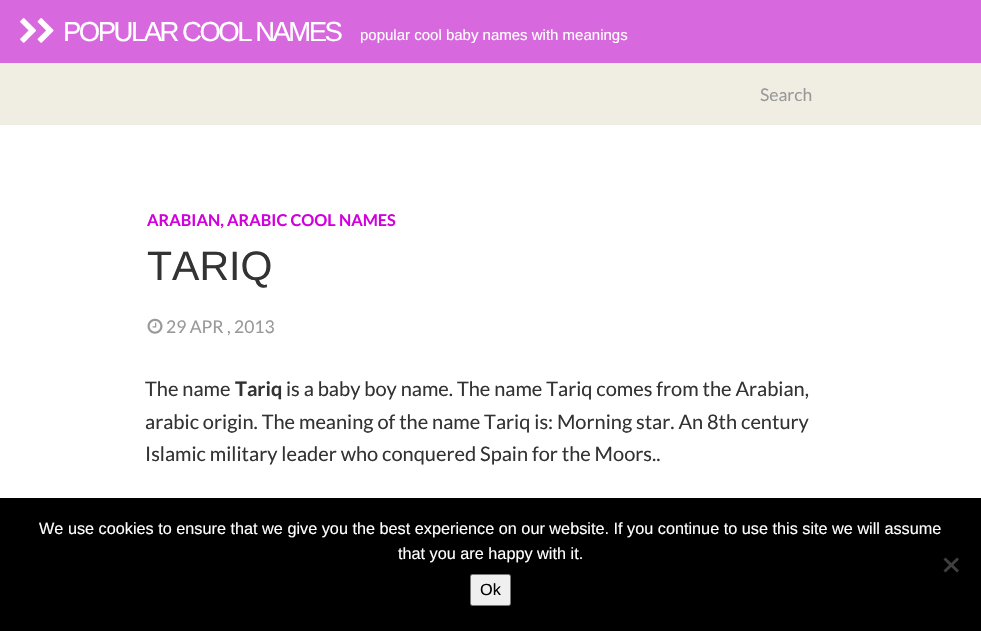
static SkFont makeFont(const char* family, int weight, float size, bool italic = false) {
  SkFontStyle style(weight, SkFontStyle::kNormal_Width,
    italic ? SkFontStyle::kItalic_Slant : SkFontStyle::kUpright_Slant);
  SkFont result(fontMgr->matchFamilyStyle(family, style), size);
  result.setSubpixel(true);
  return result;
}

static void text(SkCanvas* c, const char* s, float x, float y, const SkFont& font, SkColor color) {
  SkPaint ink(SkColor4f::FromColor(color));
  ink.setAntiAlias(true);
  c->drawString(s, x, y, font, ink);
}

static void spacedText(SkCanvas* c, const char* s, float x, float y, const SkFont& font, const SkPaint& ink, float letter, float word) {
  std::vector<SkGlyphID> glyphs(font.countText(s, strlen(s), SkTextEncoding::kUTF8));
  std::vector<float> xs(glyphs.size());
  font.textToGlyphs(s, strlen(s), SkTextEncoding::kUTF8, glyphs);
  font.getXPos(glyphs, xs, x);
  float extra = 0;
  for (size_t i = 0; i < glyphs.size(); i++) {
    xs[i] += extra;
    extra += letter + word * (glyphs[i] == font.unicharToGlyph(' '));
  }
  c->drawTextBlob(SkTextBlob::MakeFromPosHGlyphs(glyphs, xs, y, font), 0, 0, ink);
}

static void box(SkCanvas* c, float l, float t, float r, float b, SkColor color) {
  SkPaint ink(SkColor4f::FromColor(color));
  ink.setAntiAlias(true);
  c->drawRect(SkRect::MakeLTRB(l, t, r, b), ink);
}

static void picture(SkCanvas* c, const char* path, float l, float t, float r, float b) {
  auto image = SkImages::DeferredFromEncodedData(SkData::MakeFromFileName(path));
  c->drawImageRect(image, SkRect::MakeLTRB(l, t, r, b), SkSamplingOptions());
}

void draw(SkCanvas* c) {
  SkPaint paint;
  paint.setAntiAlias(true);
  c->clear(0xffffffff);
  box(c, 0, 0, 981, 63, 0xffd768dd);
  picture(c, "img_01.png", 20, 18, 36, 43);
  picture(c, "img_02.png", 37, 18, 54, 43);
  SkFont face1 = makeFont("Liberation Sans", 400, 27.5f);
  paint.setColor(0xffffffff);
  spacedText(c, "POPULAR COOL NAMES", 63, 41, face1, paint, -2.5f, 0);
  SkFont face2 = makeFont("Liberation Sans", 400, 15);
  text(c, "popular cool baby names with meanings", 360, 40, face2, 0xffffffff);
  box(c, 0, 63, 981, 125, 0xfff0ede3);
  SkFont face3 = makeFont("Lato", 400, 17.5f);
  text(c, "Search", 760, 101, face3, 0xff999999);
  SkFont face4 = makeFont("Lato", 700, 16.25f);
  text(c, "ARABIAN, ARABIC COOL NAMES", 147, 226, face4, 0xffd200dd);
  SkFont face5 = makeFont("Liberation Sans", 400, 41);
  text(c, "TARIQ", 147, 280, face5, 0xff333333);
  picture(c, "img_03.png", 147, 318, 163, 334);
  text(c, "29 APR , 2013", 166, 333, face3, 0xff999999);
  SkFont face6 = makeFont("Lato", 400, 20);
  text(c, "The name", 145, 396, face6, 0xff333333);
  SkFont face7 = makeFont("Lato", 700, 20);
  text(c, "Tariq", 235, 396, face7, 0xff333333);
  text(c, "is a baby boy name. The name Tariq comes from the Arabian,", 286, 396, face6, 0xff333333);
  text(c, "arabic origin. The meaning of the name Tariq is: Morning star. An 8th century", 145, 429, face6, 0xff333333);
  text(c, "Islamic military leader who conquered Spain for the Moors..", 145, 461, face6, 0xff333333);
  box(c, 0, 498, 981, 631, 0xff000000);
  SkFont face8 = makeFont("Liberation Sans", 400, 16.25f);
  text(c, "We use cookies to ensure that we give you the best experience on our website. If you continue to use this site we will assume", 39, 534, face8, 0xffffffff);
  text(c, "that you are happy with it.", 398, 559, face8, 0xffffffff);
  paint.setColor(0xff404040);
  c->drawPath(SkPathBuilder().moveTo(957, 557.5f).lineTo(959, 559.5f).lineTo(945.5f, 572.5f).lineTo(943.5f, 570.5f).close().detach(), paint);
  c->drawPath(SkPathBuilder().moveTo(943.5f, 559.5f).lineTo(945.5f, 557.5f).lineTo(959, 570.5f).lineTo(957, 572.5f).close().detach(), paint);
  paint.setColor(0xffefefef);
  c->drawRoundRect(SkRect::MakeLTRB(470.5f, 574.5f, 510.5f, 605.5f), 2, 2, paint);
  paint.setStyle(SkPaint::kStroke_Style);
  paint.setStrokeWidth(1);
  paint.setColor(0xff767676);
  c->drawRoundRect(SkRect::MakeLTRB(470.5f, 574.5f, 510.5f, 605.5f), 2, 2, paint);
  text(c, "Ok", 480, 595, face8, 0xff000000);
}
